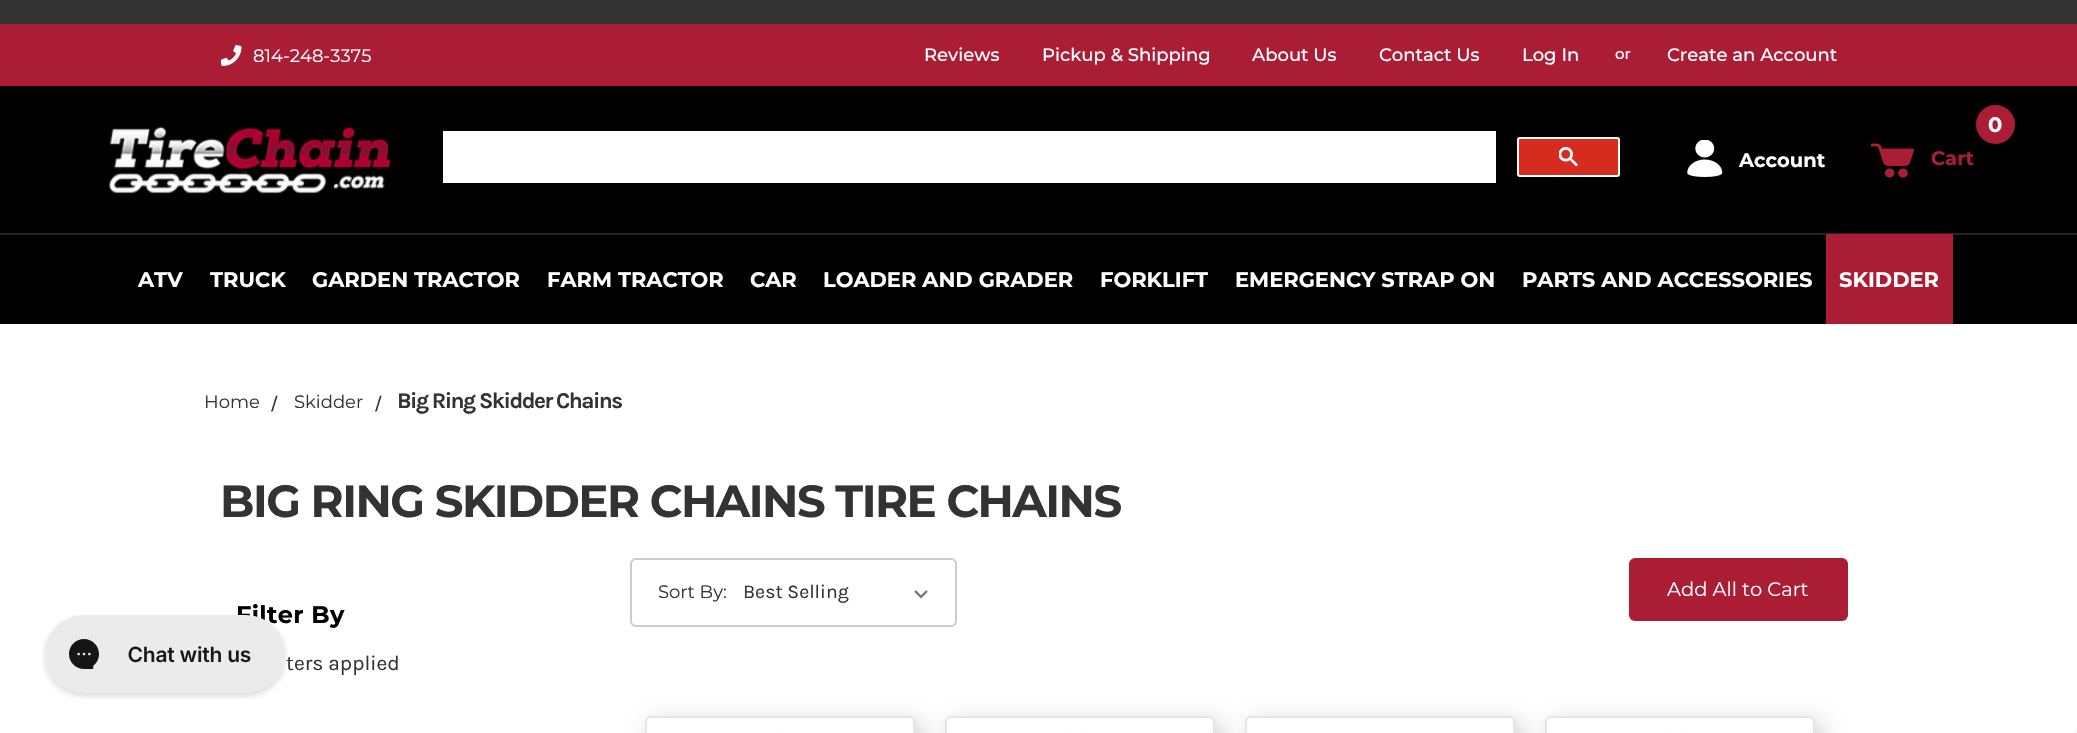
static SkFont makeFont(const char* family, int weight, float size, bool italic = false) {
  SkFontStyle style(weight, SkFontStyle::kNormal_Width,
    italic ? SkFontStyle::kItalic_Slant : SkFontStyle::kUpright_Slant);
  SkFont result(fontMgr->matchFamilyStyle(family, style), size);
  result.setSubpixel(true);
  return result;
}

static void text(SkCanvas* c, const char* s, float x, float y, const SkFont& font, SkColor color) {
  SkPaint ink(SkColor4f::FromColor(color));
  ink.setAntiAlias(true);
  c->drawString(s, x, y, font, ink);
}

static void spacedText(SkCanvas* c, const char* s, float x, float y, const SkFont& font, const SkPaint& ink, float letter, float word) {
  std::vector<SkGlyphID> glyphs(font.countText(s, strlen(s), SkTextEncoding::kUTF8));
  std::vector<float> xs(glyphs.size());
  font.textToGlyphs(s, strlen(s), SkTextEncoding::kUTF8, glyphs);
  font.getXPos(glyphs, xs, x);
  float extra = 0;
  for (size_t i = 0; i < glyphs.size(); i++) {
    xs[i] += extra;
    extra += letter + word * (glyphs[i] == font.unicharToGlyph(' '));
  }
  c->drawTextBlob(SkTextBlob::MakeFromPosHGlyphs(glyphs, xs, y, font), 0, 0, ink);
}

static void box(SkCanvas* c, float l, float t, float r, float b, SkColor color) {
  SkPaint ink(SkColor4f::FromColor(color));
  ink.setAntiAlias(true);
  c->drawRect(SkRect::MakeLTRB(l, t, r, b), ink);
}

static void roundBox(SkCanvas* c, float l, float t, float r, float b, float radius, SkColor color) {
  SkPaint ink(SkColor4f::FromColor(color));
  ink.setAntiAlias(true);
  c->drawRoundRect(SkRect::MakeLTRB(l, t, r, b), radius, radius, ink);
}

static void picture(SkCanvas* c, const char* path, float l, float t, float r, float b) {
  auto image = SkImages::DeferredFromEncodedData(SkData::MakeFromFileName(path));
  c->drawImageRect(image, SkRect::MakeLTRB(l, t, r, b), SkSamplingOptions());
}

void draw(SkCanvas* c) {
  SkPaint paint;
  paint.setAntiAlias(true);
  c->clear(0xffffffff);
  box(c, 0, 0, 2077, 24, 0xff333333);
  box(c, 0, 24, 2077, 86, 0xffaa1d35);
  picture(c, "img_01.png", 221, 45, 242, 66);
  SkFont face1 = makeFont("Montserrat", 400, 18);
  text(c, "814-248-3375", 253, 62, face1, 0xffffffff);
  SkFont face2 = makeFont("Montserrat", 500, 18);
  text(c, "Reviews", 924, 61, face2, 0xffffffff);
  text(c, "Pickup & Shipping", 1042, 61, face2, 0xffffffff);
  text(c, "About Us", 1252, 61, face2, 0xffffffff);
  text(c, "Contact Us", 1379, 61, face2, 0xffffffff);
  text(c, "Log In", 1522, 61, face2, 0xffffffff);
  SkFont face3 = makeFont("Montserrat", 500, 15);
  text(c, "or", 1615, 59, face3, 0xffffffff);
  text(c, "Create an Account", 1667, 61, face2, 0xffffffff);
  box(c, 0, 86, 2077, 233, 0xff000000);
  picture(c, "img_02.png", 108, 126, 391, 194);
  box(c, 443, 131, 1496, 183, 0xffffffff);
  paint.setColor(0xffd52c1f);
  c->drawRoundRect(SkRect::MakeLTRB(1518, 138, 1619, 176), 2, 2, paint);
  paint.setStyle(SkPaint::kStroke_Style);
  paint.setStrokeWidth(2);
  paint.setColor(0xffffffff);
  c->drawRoundRect(SkRect::MakeLTRB(1518, 138, 1619, 176), 2, 2, paint);
  picture(c, "img_03.png", 1559, 147, 1578, 167);
  picture(c, "img_04.png", 1687, 140, 1723, 177);
  SkFont face4 = makeFont("Montserrat", 700, 19.5f);
  text(c, "Account", 1739, 167, face4, 0xffffffff);
  paint.setStyle(SkPaint::kFill_Style);
  paint.setColor(0xffaa1d35);
  c->drawCircle(1995.5f, 124.5f, 19.5f, paint);
  SkFont face5 = makeFont("Montserrat", 700, 21);
  text(c, "0", 1988, 132, face5, 0xffffffff);
  picture(c, "img_05.png", 1871, 143, 1914, 178);
  text(c, "Cart", 1931, 165, face4, 0xffaa1d35);
  box(c, 0, 235, 2077, 324, 0xff000000);
  box(c, 0, 233, 2077, 235, 0xff252525);
  text(c, "ATV", 138, 287, face5, 0xffffffff);
  text(c, "TRUCK", 210, 287, face5, 0xffffffff);
  text(c, "GARDEN TRACTOR", 312, 287, face5, 0xffffffff);
  text(c, "FARM TRACTOR", 547, 287, face5, 0xffffffff);
  text(c, "CAR", 750, 287, face5, 0xffffffff);
  text(c, "LOADER AND GRADER", 823, 287, face5, 0xffffffff);
  text(c, "FORKLIFT", 1100, 287, face5, 0xffffffff);
  text(c, "EMERGENCY STRAP ON", 1235, 287, face5, 0xffffffff);
  text(c, "PARTS AND ACCESSORIES", 1522, 287, face5, 0xffffffff);
  box(c, 1826, 234, 1953, 324, 0xffaa1d35);
  text(c, "SKIDDER", 1839, 287, face5, 0xffffffff);
  SkFont face6 = makeFont("Montserrat", 700, 24);
  paint.setColor(0xff000000);
  spacedText(c, "Filter By", 236, 623, face6, paint, 0.4f, 0);
  SkFont face7 = makeFont("Karla", 400, 21);
  text(c, "ters applied", 286, 670, face7, 0xff333333);
  picture(c, "img_06.png", 42, 615, 288, 699);
  text(c, "Home", 204, 408, face1, 0xff333333);
  SkFont face8 = makeFont("Karla", 400, 19.5f);
  text(c, "/", 270, 410, face8, 0xff333333);
  text(c, "Skidder", 294, 408, face1, 0xff333333);
  text(c, "/", 374, 410, face8, 0xff333333);
  SkFont face9 = makeFont("Karla", 700, 22.5f);
  paint.setColor(0xff333333);
  spacedText(c, "Big Ring Skidder Chains", 397, 408, face9, paint, -1.5f, 0);
  SkFont face10 = makeFont("Montserrat", 700, 45);
  spacedText(c, "BIG RING SKIDDER CHAINS TIRE CHAINS", 220, 517, face10, paint, -1.5f, 0);
  paint.setStyle(SkPaint::kStroke_Style);
  paint.setColor(0xffcccccc);
  c->drawRoundRect(SkRect::MakeLTRB(631, 559, 956, 626), 5, 5, paint);
  text(c, "Sort By:", 658, 598, face1, 0xff333333);
  picture(c, "img_07.png", 914, 590, 928, 599);
  text(c, "Best Selling", 743, 598, face8, 0xff333333);
  roundBox(c, 1629, 558, 1848, 621, 6, 0xffaa1d35);
  SkFont face11 = makeFont("Montserrat", 400, 19.5f);
  text(c, "Add All to Cart", 1667, 596, face11, 0xffffffff);
  c->save();
  c->clipPath(SkPathBuilder(SkPathFillType::kEvenOdd).moveTo(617, 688).lineTo(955, 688).lineTo(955, 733).lineTo(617, 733).close().moveTo(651, 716).lineTo(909, 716).cubicTo(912.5f, 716, 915, 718.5f, 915, 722).lineTo(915, 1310).cubicTo(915, 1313.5f, 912.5f, 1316, 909, 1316).lineTo(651, 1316).cubicTo(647.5f, 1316, 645, 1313.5f, 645, 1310).lineTo(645, 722).cubicTo(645, 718.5f, 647.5f, 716, 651, 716).close().detach(), true);
  paint.setStyle(SkPaint::kFill_Style);
  paint.setColor(0x33000000);
  paint.setMaskFilter(SkMaskFilter::MakeBlur(kNormal_SkBlurStyle, 11));
  c->drawRoundRect(SkRect::MakeLTRB(651, 722, 921, 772), 6, 6, paint);
  paint.setMaskFilter(nullptr);
  c->restore();
  paint.setStyle(SkPaint::kStroke_Style);
  paint.setColor(0xffe5e5e5);
  c->drawRoundRect(SkRect::MakeLTRB(646, 717, 914, 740), 5, 5, paint);
  picture(c, "img_08.png", 767, 732, 784, 733);
  c->save();
  c->clipPath(SkPathBuilder(SkPathFillType::kEvenOdd).moveTo(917, 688).lineTo(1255, 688).lineTo(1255, 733).lineTo(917, 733).close().moveTo(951, 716).lineTo(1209, 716).cubicTo(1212.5f, 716, 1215, 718.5f, 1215, 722).lineTo(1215, 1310).cubicTo(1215, 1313.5f, 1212.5f, 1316, 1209, 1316).lineTo(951, 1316).cubicTo(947.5f, 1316, 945, 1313.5f, 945, 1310).lineTo(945, 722).cubicTo(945, 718.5f, 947.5f, 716, 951, 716).close().detach(), true);
  paint.setStyle(SkPaint::kFill_Style);
  paint.setColor(0x33000000);
  paint.setMaskFilter(SkMaskFilter::MakeBlur(kNormal_SkBlurStyle, 11));
  c->drawRoundRect(SkRect::MakeLTRB(951, 722, 1221, 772), 6, 6, paint);
  paint.setMaskFilter(nullptr);
  c->restore();
  paint.setStyle(SkPaint::kStroke_Style);
  paint.setColor(0xffe5e5e5);
  c->drawRoundRect(SkRect::MakeLTRB(946, 717, 1214, 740), 5, 5, paint);
  picture(c, "img_09.png", 1067, 732, 1085, 733);
  c->save();
  c->clipPath(SkPathBuilder(SkPathFillType::kEvenOdd).moveTo(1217, 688).lineTo(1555, 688).lineTo(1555, 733).lineTo(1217, 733).close().moveTo(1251, 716).lineTo(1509, 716).cubicTo(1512.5f, 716, 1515, 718.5f, 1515, 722).lineTo(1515, 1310).cubicTo(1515, 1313.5f, 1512.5f, 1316, 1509, 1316).lineTo(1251, 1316).cubicTo(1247.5f, 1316, 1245, 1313.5f, 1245, 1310).lineTo(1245, 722).cubicTo(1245, 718.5f, 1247.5f, 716, 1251, 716).close().detach(), true);
  paint.setStyle(SkPaint::kFill_Style);
  paint.setColor(0x33000000);
  paint.setMaskFilter(SkMaskFilter::MakeBlur(kNormal_SkBlurStyle, 11));
  c->drawRoundRect(SkRect::MakeLTRB(1251, 722, 1521, 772), 6, 6, paint);
  paint.setMaskFilter(nullptr);
  c->restore();
  paint.setStyle(SkPaint::kStroke_Style);
  paint.setColor(0xffe5e5e5);
  c->drawRoundRect(SkRect::MakeLTRB(1246, 717, 1514, 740), 5, 5, paint);
  c->save();
  c->clipPath(SkPathBuilder(SkPathFillType::kEvenOdd).moveTo(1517, 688).lineTo(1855, 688).lineTo(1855, 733).lineTo(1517, 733).close().moveTo(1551, 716).lineTo(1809, 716).cubicTo(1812.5f, 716, 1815, 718.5f, 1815, 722).lineTo(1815, 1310).cubicTo(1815, 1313.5f, 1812.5f, 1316, 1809, 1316).lineTo(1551, 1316).cubicTo(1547.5f, 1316, 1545, 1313.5f, 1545, 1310).lineTo(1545, 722).cubicTo(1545, 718.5f, 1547.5f, 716, 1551, 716).close().detach(), true);
  paint.setStyle(SkPaint::kFill_Style);
  paint.setColor(0x33000000);
  paint.setMaskFilter(SkMaskFilter::MakeBlur(kNormal_SkBlurStyle, 11));
  c->drawRoundRect(SkRect::MakeLTRB(1551, 722, 1821, 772), 6, 6, paint);
  paint.setMaskFilter(nullptr);
  c->restore();
  paint.setStyle(SkPaint::kStroke_Style);
  paint.setColor(0xffe5e5e5);
  c->drawRoundRect(SkRect::MakeLTRB(1546, 717, 1814, 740), 5, 5, paint);
  picture(c, "img_09.png", 1667, 732, 1685, 733);
  box(c, 2075, 731, 2077, 733, 0xfff5f5f5);
}
